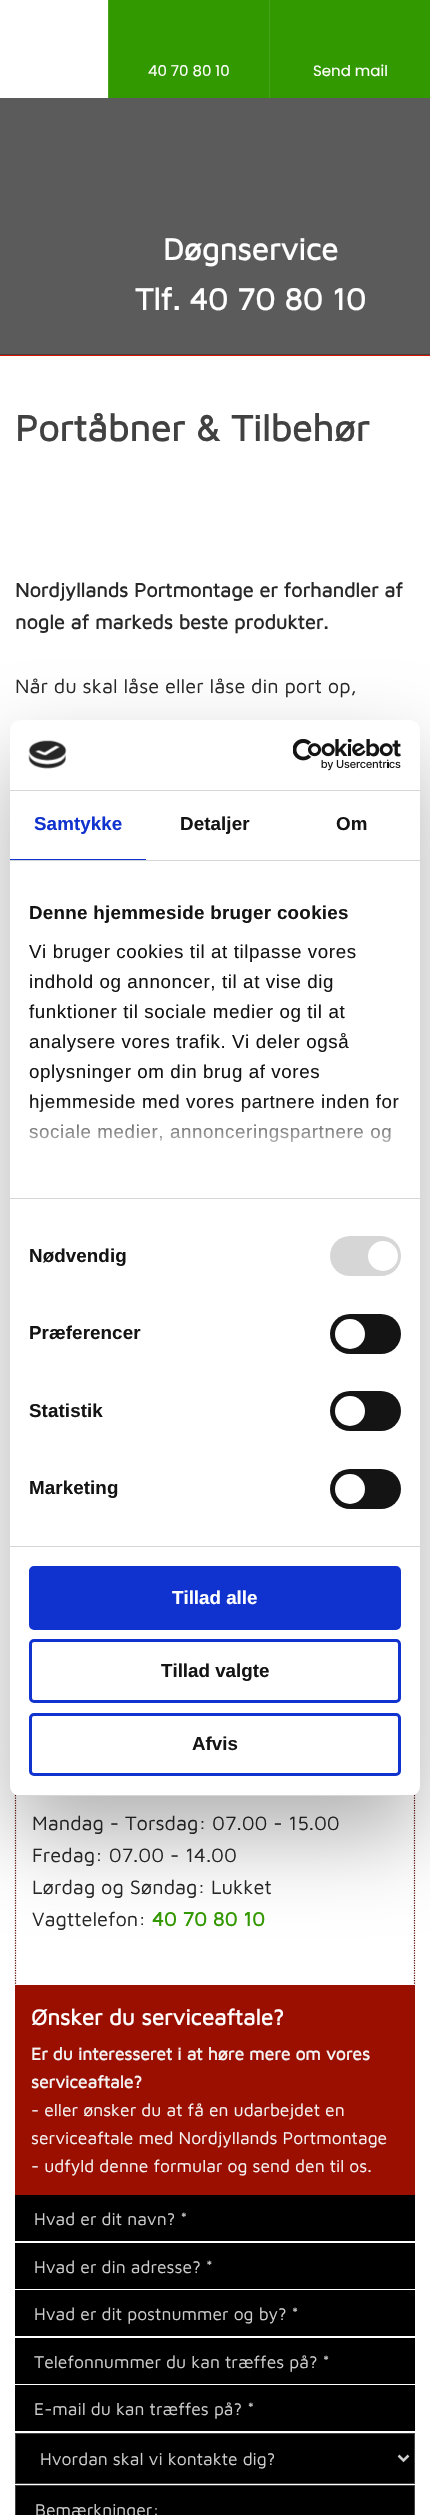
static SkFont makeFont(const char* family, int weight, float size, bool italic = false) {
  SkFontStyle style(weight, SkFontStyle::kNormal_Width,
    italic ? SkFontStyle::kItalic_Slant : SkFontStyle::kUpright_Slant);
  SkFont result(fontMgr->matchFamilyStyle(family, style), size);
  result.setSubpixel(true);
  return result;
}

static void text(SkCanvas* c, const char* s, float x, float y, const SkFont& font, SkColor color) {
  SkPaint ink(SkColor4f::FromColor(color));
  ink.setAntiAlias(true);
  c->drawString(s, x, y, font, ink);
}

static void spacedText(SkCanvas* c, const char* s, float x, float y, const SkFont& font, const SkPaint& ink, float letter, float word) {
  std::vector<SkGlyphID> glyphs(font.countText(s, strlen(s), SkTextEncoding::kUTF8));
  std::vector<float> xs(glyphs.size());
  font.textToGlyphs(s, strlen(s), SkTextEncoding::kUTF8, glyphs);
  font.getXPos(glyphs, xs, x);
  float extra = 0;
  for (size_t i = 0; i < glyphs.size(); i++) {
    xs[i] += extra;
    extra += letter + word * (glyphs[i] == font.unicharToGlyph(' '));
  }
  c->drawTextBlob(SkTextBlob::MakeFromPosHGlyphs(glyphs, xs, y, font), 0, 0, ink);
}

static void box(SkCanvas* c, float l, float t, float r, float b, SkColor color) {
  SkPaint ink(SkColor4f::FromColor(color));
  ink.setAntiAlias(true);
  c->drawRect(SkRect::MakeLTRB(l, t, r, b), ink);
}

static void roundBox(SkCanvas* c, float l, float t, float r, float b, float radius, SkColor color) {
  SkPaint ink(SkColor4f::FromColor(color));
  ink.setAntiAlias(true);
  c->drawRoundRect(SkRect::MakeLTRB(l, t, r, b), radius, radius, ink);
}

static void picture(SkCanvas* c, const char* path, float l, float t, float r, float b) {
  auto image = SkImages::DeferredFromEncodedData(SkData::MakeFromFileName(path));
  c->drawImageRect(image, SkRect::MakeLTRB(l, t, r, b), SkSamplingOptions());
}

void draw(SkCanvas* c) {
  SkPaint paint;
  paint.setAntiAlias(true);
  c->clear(0xffffffff);
  box(c, 109, 0, 269, 98, 0xff339900);
  box(c, 108, 0, 109, 98, 0xff47a31a);
  SkFont face1 = makeFont("Poppins", 400, 15);
  text(c, "40 70 80 10", 148, 76, face1, 0xffffffff);
  box(c, 270, 0, 430, 98, 0xff339900);
  box(c, 269, 0, 270, 98, 0xff47a31a);
  text(c, "Send mail", 313, 76, face1, 0xffffffff);
  box(c, 0, 98, 430, 354, 0xff5b5b5b);
  box(c, 0, 354, 430, 355, 0xff414141);
  SkFont face2 = makeFont("Maven Pro", 700, 31.25f);
  text(c, "Døgnservice", 163, 260, face2, 0xffffffff);
  text(c, "Tlf. 40 70 80 10", 135, 310, face2, 0xffffffff);
  box(c, 0, 355, 430, 356, 0xffd91501);
  SkFont face3 = makeFont("Maven Pro", 700, 37.5f);
  text(c, "Portåbner & Tilbehør", 15, 441, face3, 0xff414141);
  SkFont face4 = makeFont("Maven Pro", 700, 20);
  text(c, "Nordjyllands Portmontage er forhandler af", 15, 597, face4, 0xff282828);
  text(c, "nogle af markeds beste produkter.", 15, 629, face4, 0xff282828);
  SkFont face5 = makeFont("Maven Pro", 400, 20);
  text(c, "Når du skal låse eller låse din port op,", 15, 693, face5, 0xff282828);
  paint.setStyle(SkPaint::kStroke_Style);
  paint.setStrokeWidth(1.2f);
  paint.setColor(0xff5d0901);
  paint.setPathEffect(SkDashPathEffect::Make({{1.25f, 1.25f}}, 0));
  c->drawPath(SkPathBuilder().moveTo(414.5f, 1742.5f).lineTo(414.5f, 1985).detach(), paint);
  paint.setPathEffect(nullptr);
  paint.setPathEffect(SkDashPathEffect::Make({{1.25f, 1.25f}}, 0));
  c->drawPath(SkPathBuilder().moveTo(15.5f, 1742.5f).lineTo(15.5f, 1985).detach(), paint);
  paint.setPathEffect(nullptr);
  text(c, "Mandag - Torsdag: 07.00 - 15.00", 32, 1830, face5, 0xff282828);
  text(c, "Fredag: 07.00 - 14.00", 32, 1862, face5, 0xff282828);
  text(c, "Lørdag og Søndag: Lukket", 32, 1894, face5, 0xff282828);
  text(c, "Vagttelefon:", 32, 1926, face5, 0xff282828);
  text(c, "40 70 80 10", 152, 1926, face4, 0xff339900);
  box(c, 15, 1985, 415, 2195, 0xff9b0f01);
  SkFont face6 = makeFont("Maven Pro", 700, 22.5f);
  text(c, "Ønsker du serviceaftale?", 31, 2025, face6, 0xffffffff);
  SkFont face7 = makeFont("Maven Pro", 700, 17.5f);
  text(c, "Er du interesseret i at høre mere om vores", 31, 2060, face7, 0xfff5f5f5);
  text(c, "serviceaftale?", 31, 2088, face7, 0xfff5f5f5);
  SkFont face8 = makeFont("Maven Pro", 400, 17.5f);
  text(c, "- eller ønsker du at få en udarbejdet en", 31, 2116, face8, 0xfff5f5f5);
  text(c, "serviceaftale med Nordjyllands Portmontage", 31, 2144, face8, 0xfff5f5f5);
  text(c, "- udfyld denne formular og send den til os.", 31, 2172, face8, 0xfff5f5f5);
  box(c, 15, 2195, 415, 2241, 0xff000000);
  text(c, "Hvad er dit navn? *", 34, 2225, face8, 0xffcdcdcd);
  box(c, 15, 2243, 415, 2289, 0xff000000);
  text(c, "Hvad er din adresse? *", 34, 2273, face8, 0xffcdcdcd);
  box(c, 15, 2290, 415, 2336, 0xff000000);
  text(c, "Hvad er dit postnummer og by? *", 34, 2320, face8, 0xffcdcdcd);
  box(c, 15, 2338, 415, 2384, 0xff000000);
  text(c, "Telefonnummer du kan træffes på? *", 34, 2368, face8, 0xffcdcdcd);
  box(c, 15, 2385, 415, 2431, 0xff000000);
  text(c, "E-mail du kan træffes på? *", 34, 2415, face8, 0xffcdcdcd);
  paint.setStyle(SkPaint::kFill_Style);
  paint.setColor(0xff000000);
  c->drawRect(SkRect::MakeLTRB(15.5f, 2433.5f, 414.5f, 2483.5f), paint);
  paint.setStyle(SkPaint::kStroke_Style);
  paint.setStrokeWidth(1);
  paint.setColor(0xff414141);
  c->drawRect(SkRect::MakeLTRB(15.5f, 2433.5f, 414.5f, 2483.5f), paint);
  paint.setStrokeWidth(2.5f);
  paint.setColor(0xffcdcdcd);
  c->drawPath(SkPathBuilder().moveTo(398.5f, 2455.5f).lineTo(403.5f, 2460.5f).lineTo(408.5f, 2455.5f).detach(), paint);
  text(c, "Hvordan skal vi kontakte dig?", 40, 2465, face8, 0xffcdcdcd);
  paint.setStyle(SkPaint::kFill_Style);
  paint.setColor(0xff000000);
  c->drawRect(SkRect::MakeLTRB(15.5f, 2485.5f, 414.5f, 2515.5f), paint);
  paint.setStyle(SkPaint::kStroke_Style);
  paint.setStrokeWidth(1);
  paint.setColor(0xff414141);
  c->drawRect(SkRect::MakeLTRB(15.5f, 2485.5f, 414.5f, 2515.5f), paint);
  text(c, "Bemærkninger:", 35, 2516, face8, 0xffcdcdcd);
  paint.setStyle(SkPaint::kFill_Style);
  paint.setColor(0x4d000000);
  paint.setMaskFilter(SkMaskFilter::MakeBlur(kNormal_SkBlurStyle, 42.5f));
  c->drawRoundRect(SkRect::MakeLTRB(10, 760, 420, 1836), 10, 10, paint);
  paint.setMaskFilter(nullptr);
  roundBox(c, 10, 720, 420, 1796, 10, 0xffffffff);
  box(c, 10, 790, 420, 791, 0xffd6d6d6);
  picture(c, "img_01.png", 28, 740, 67, 769);
  picture(c, "img_02.png", 293, 739, 401, 771);
  box(c, 10, 860, 420, 861, 0xffd6d6d6);
  box(c, 10, 859, 146, 860, 0xff1032cf);
  SkFont face9 = makeFont("Liberation Sans", 700, 18.75f);
  paint.setColor(0xff1032cf);
  spacedText(c, "Samtykke", 34, 830, face9, paint, 0.1f, 0);
  paint.setColor(0xff141414);
  spacedText(c, "Detaljer", 180, 830, face9, paint, 0.1f, 0);
  spacedText(c, "Om", 336, 830, face9, paint, 0.1f, 0);
  box(c, 10, 1198, 420, 1199, 0xffd6d6d6);
  spacedText(c, "Denne hjemmeside bruger cookies", 29, 919, face9, paint, 0.3f, 0);
  SkFont face10 = makeFont("Liberation Sans", 400, 18.75f);
  spacedText(c, "Vi bruger cookies til at tilpasse vores", 29, 958, face10, paint, 0.6f, 0);
  spacedText(c, "indhold og annoncer, til at vise dig", 29, 988, face10, paint, 0.6f, 0);
  spacedText(c, "funktioner til sociale medier og til at", 29, 1018, face10, paint, 0.6f, 0);
  spacedText(c, "analysere vores trafik. Vi deler også", 29, 1048, face10, paint, 0.6f, 0);
  spacedText(c, "oplysninger om din brug af vores", 29, 1078, face10, paint, 0.6f, 0);
  spacedText(c, "hjemmeside med vores partnere inden for", 29, 1108, face10, paint, 0.6f, 0);
  spacedText(c, "sociale medier, annonceringspartnere og", 29, 1138, face10, paint, 0.6f, 0);
  {
    const SkColor colors[] = {0xffffffff, 0xccffffff, 0x00ffffff};
    const float stops[] = {0, 0.5f, 1};
    const SkPoint ends[] = {{207, 1197}, {207, 1103}};
    paint.setShader(SkGradientShader::MakeLinear(ends, colors, stops, 3, SkTileMode::kClamp));
    paint.setAlpha(255);
  }
  c->drawRect(SkRect::MakeLTRB(29, 1104, 397, 1142), paint);
  box(c, 10, 1546, 420, 1547, 0xffd6d6d6);
  paint.setShader(nullptr);
  paint.setColor(0xff141414);
  spacedText(c, "Nødvendig", 29, 1262, face9, paint, 0.1f, 0);
  roundBox(c, 330, 1236, 401, 1276, 20, 0xffd6d6d6);
  paint.setColor(0xffffffff);
  c->drawCircle(383, 1256, 15, paint);
  paint.setColor(0xff141414);
  spacedText(c, "Præferencer", 29, 1339, face9, paint, 0.1f, 0);
  roundBox(c, 330, 1314, 401, 1354, 20, 0xff141414);
  paint.setColor(0xffffffff);
  c->drawCircle(350, 1334, 15, paint);
  paint.setColor(0xff141414);
  spacedText(c, "Statistik", 29, 1417, face9, paint, 0.1f, 0);
  roundBox(c, 330, 1391, 401, 1431, 20, 0xff141414);
  paint.setColor(0xffffffff);
  c->drawCircle(350, 1411, 15, paint);
  paint.setColor(0xff141414);
  spacedText(c, "Marketing", 29, 1494, face9, paint, 0.1f, 0);
  roundBox(c, 330, 1469, 401, 1509, 20, 0xff141414);
  paint.setColor(0xffffffff);
  c->drawCircle(350, 1489, 15, paint);
  c->save();
  c->clipPath(SkPathBuilder().moveTo(20, 720).lineTo(410, 720).cubicTo(415.5f, 720, 420, 724.5f, 420, 730).lineTo(420, 1786).cubicTo(420, 1791.5f, 415.5f, 1796, 410, 1796).lineTo(20, 1796).cubicTo(14.5f, 1796, 10, 1791.5f, 10, 1786).lineTo(10, 730).cubicTo(10, 724.5f, 14.5f, 720, 20, 720).close().detach(), true);
  box(c, 10, 1795, 420, 1796, 0xffd6d6d6);
  c->restore();
  paint.setColor(0xff1032cf);
  c->drawRoundRect(SkRect::MakeLTRB(30.5f, 1567.5f, 399.5f, 1628.5f), 3.5f, 3.5f, paint);
  paint.setStyle(SkPaint::kStroke_Style);
  paint.setStrokeWidth(3);
  c->drawRoundRect(SkRect::MakeLTRB(30.5f, 1567.5f, 399.5f, 1628.5f), 3.5f, 3.5f, paint);
  text(c, "Tillad alle", 172, 1604, face9, 0xffffffff);
  c->drawRoundRect(SkRect::MakeLTRB(30.5f, 1640.5f, 399.5f, 1701.5f), 3.5f, 3.5f, paint);
  text(c, "Tillad valgte", 161, 1677, face9, 0xff141414);
  c->drawRoundRect(SkRect::MakeLTRB(30.5f, 1714.5f, 399.5f, 1774.5f), 3.5f, 3.5f, paint);
  text(c, "Afvis", 192, 1750, face9, 0xff141414);
}
